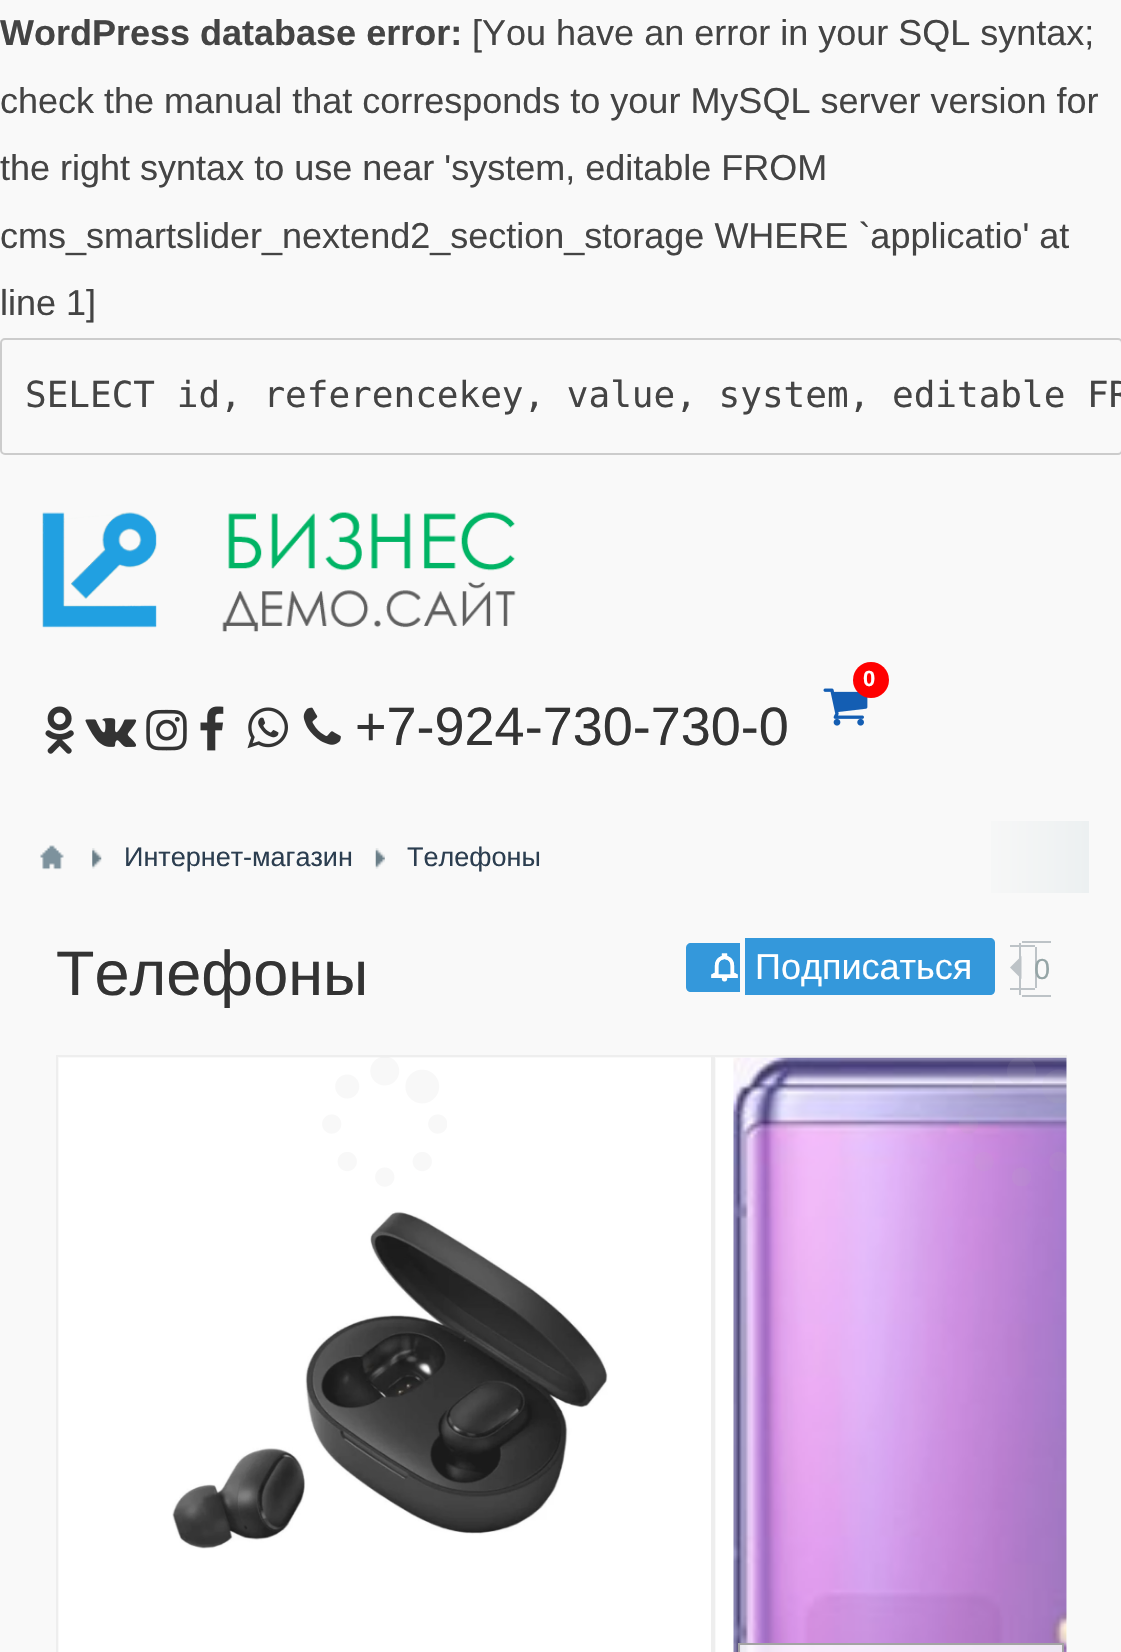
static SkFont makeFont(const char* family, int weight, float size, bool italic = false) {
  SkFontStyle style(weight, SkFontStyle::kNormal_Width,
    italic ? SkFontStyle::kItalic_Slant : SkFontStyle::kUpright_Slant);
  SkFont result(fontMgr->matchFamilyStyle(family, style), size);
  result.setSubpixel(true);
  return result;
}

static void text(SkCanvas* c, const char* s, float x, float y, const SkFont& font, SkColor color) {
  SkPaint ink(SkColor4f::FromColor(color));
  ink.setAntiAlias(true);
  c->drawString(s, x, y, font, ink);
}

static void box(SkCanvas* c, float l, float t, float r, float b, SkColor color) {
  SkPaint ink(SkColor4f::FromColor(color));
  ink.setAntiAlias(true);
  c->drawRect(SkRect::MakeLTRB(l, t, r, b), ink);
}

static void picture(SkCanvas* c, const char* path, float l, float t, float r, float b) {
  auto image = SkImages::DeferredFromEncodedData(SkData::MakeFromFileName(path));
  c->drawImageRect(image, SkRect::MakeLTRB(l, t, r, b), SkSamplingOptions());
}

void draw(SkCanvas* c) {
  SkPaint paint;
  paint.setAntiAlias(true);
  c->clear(0xfff9f9f9);
  SkFont face1 = makeFont("Liberation Sans", 700, 36);
  text(c, "WordPress database error:", 0, 45, face1, 0xff444444);
  SkFont face2 = makeFont("Liberation Sans", 400, 36);
  text(c, "[You have an error in your SQL syntax;", 472, 45, face2, 0xff444444);
  text(c, "check the manual that corresponds to your MySQL server version for", 0, 113, face2, 0xff444444);
  text(c, "the right syntax to use near 'system, editable FROM", 0, 180, face2, 0xff444444);
  text(c, "cms_smartslider_nextend2_section_storage WHERE `applicatio' at", 0, 248, face2, 0xff444444);
  text(c, "line 1]", 0, 315, face2, 0xff444444);
  paint.setStyle(SkPaint::kStroke_Style);
  paint.setStrokeWidth(2);
  paint.setColor(0xffcccccc);
  c->drawRoundRect(SkRect::MakeLTRB(1, 339, 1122, 454), 4, 4, paint);
  SkFont face3 = makeFont("DejaVu Sans Mono", 400, 36);
  text(c, "SELECT id, referencekey, value, system, editable FR", 25, 407, face3, 0xff444444);
  picture(c, "img_01.png", 42, 512, 516, 632);
  picture(c, "img_02.png", 823, 688, 868, 726);
  paint.setStyle(SkPaint::kFill_Style);
  paint.setColor(0xffff0000);
  c->drawCircle(871, 680, 18, paint);
  SkFont face4 = makeFont("Liberation Sans", 700, 22);
  text(c, "0", 863, 686, face4, 0xffffffff);
  picture(c, "img_03.png", 45, 706, 74, 754);
  picture(c, "img_04.png", 85, 718, 137, 747);
  picture(c, "img_05.png", 146, 709, 187, 751);
  picture(c, "img_06.png", 200, 706, 224, 751);
  picture(c, "img_07.png", 247, 707, 288, 749);
  picture(c, "img_08.png", 303, 707, 341, 745);
  SkFont face5 = makeFont("Liberation Sans", 400, 54);
  text(c, "+7-924-730-730-0", 355, 745, face5, 0xff333333);
  picture(c, "img_09.png", 40, 845, 64, 870);
  picture(c, "img_10.png", 92, 848, 102, 869);
  SkFont face6 = makeFont("Liberation Sans", 400, 27);
  text(c, "Интернет-магазин", 124, 866, face6, 0xff2c3e50);
  picture(c, "img_11.png", 375, 848, 385, 869);
  text(c, "Телефоны", 407, 866, face6, 0xff2c3e50);
  {
    const SkColor colors[] = {0xfff8f8f8, 0xffecf0f1};
    const float stops[] = {0, 1};
    const SkPoint ends[] = {{977, 857}, {1089, 857}};
    paint.setShader(SkGradientShader::MakeLinear(ends, colors, stops, 2, SkTileMode::kClamp));
    paint.setAlpha(255);
  }
  c->drawRect(SkRect::MakeLTRB(991, 821, 1089, 893), paint);
  SkFont face7 = makeFont("Liberation Sans", 400, 63);
  text(c, "Телефоны", 56, 995, face7, 0xff333333);
  paint.setShader(nullptr);
  paint.setColor(0xff3498db);
  c->drawPath(SkPathBuilder().moveTo(691, 943).lineTo(740, 943).lineTo(740, 992).lineTo(691, 992).cubicTo(688, 992, 686, 990, 686, 987).lineTo(686, 948).cubicTo(686, 945, 688, 943, 691, 943).close().detach(), paint);
  box(c, 745, 938, 756, 995, 0xff3498db);
  c->drawPath(SkPathBuilder().moveTo(756, 938).lineTo(990, 938).cubicTo(993, 938, 995, 940, 995, 943).lineTo(995, 990).cubicTo(995, 993, 993, 995, 990, 995).lineTo(756, 995).close().detach(), paint);
  picture(c, "img_12.png", 711, 953, 738, 982);
  text(c, "Подписаться", 755, 979, face2, 0xffffffff);
  box(c, 1022, 941, 1051, 943, 0xffbdc3c7);
  box(c, 1022, 995, 1051, 997, 0xffbdc3c7);
  box(c, 1019, 943, 1021, 995, 0xffbdc3c7);
  box(c, 1010, 945, 1035, 947, 0xffbdc3c7);
  box(c, 1035, 947, 1037, 988, 0xffbdc3c7);
  box(c, 1010, 988, 1035, 990, 0xffbdc3c7);
  paint.setColor(0xffbdc3c7);
  c->drawPath(SkPathBuilder().moveTo(1021.5f, 956).lineTo(1021.5f, 979).lineTo(1010, 967.5f).close().detach(), paint);
  SkFont face8 = makeFont("Liberation Sans", 400, 29);
  text(c, "0", 1034, 979, face8, 0xff95a5a6);
  paint.setStyle(SkPaint::kStroke_Style);
  paint.setColor(0xffeeeeee);
  c->drawRect(SkRect::MakeLTRB(57, 1056, 712, 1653), paint);
  box(c, 59, 1058, 711, 1652, 0xffffffff);
  picture(c, "img_13.png", 322, 1057, 447, 1187);
  picture(c, "img_14.png", 172, 1211, 608, 1549);
  c->save();
  c->clipRect(SkRect::MakeLTRB(56, 1055, 1067, 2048));
  c->drawRect(SkRect::MakeLTRB(714, 1056, 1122, 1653), paint);
  c->restore();
  box(c, 716, 1058, 1067, 1652, 0xffffffff);
  picture(c, "img_15.png", 733, 1057, 1067, 1652);
  paint.setStyle(SkPaint::kFill_Style);
  paint.setColor(0xd1ffffff);
  c->drawRect(SkRect::MakeLTRB(739, 1644, 1063, 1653), paint);
  paint.setStyle(SkPaint::kStroke_Style);
  paint.setColor(0xffa3a3a3);
  c->drawRect(SkRect::MakeLTRB(739, 1644, 1063, 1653), paint);
  picture(c, "img_16.png", 959, 1057, 1067, 1186);
}
